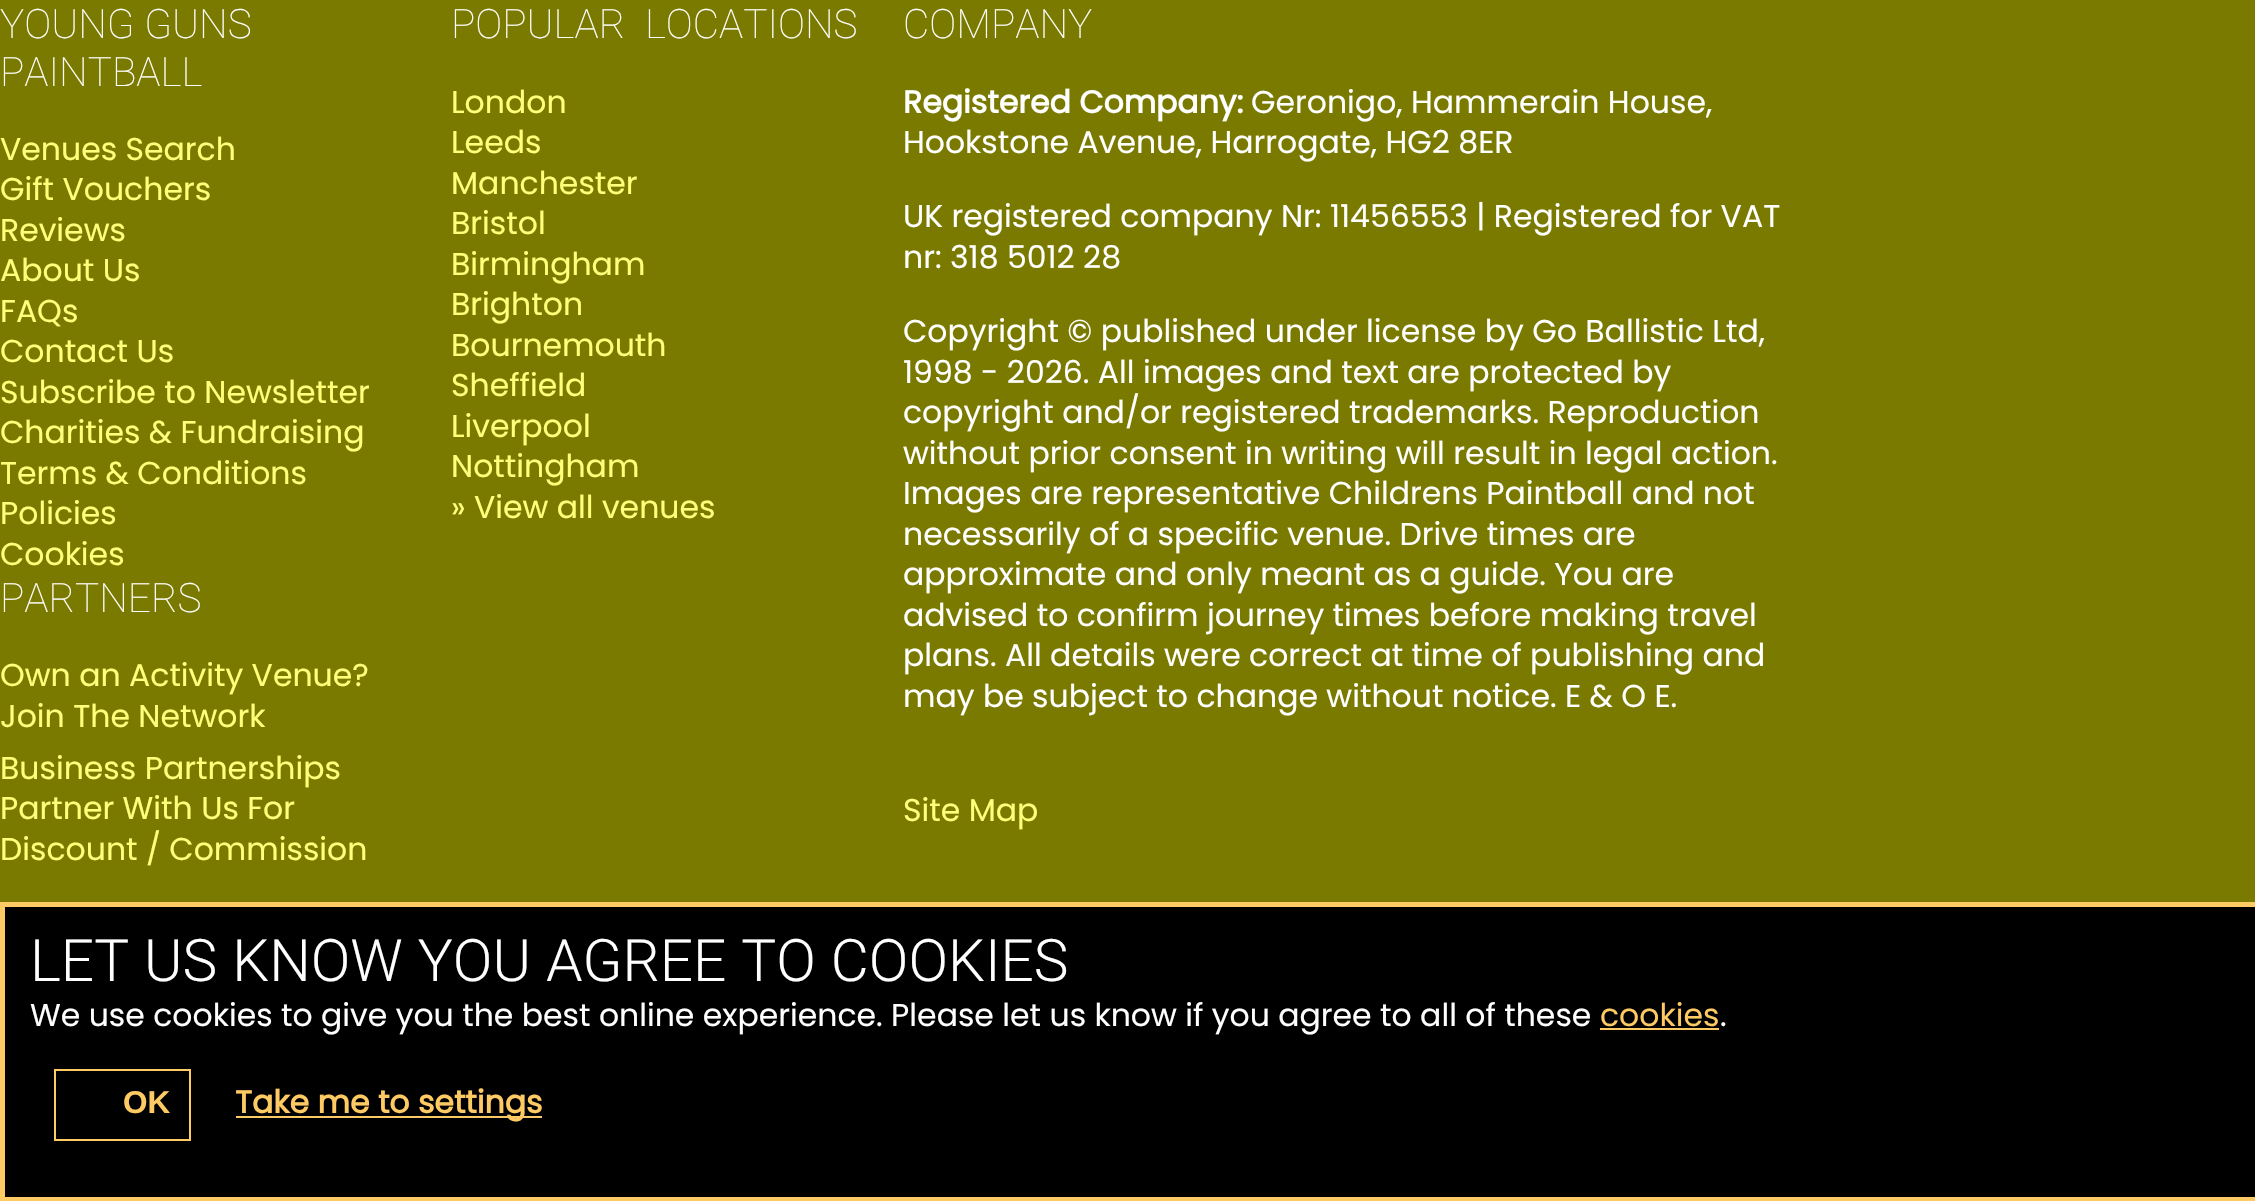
static SkFont makeFont(const char* family, int weight, float size, bool italic = false) {
  SkFontStyle style(weight, SkFontStyle::kNormal_Width,
    italic ? SkFontStyle::kItalic_Slant : SkFontStyle::kUpright_Slant);
  SkFont result(fontMgr->matchFamilyStyle(family, style), size);
  result.setSubpixel(true);
  return result;
}

static void text(SkCanvas* c, const char* s, float x, float y, const SkFont& font, SkColor color) {
  SkPaint ink(SkColor4f::FromColor(color));
  ink.setAntiAlias(true);
  c->drawString(s, x, y, font, ink);
}

static void spacedText(SkCanvas* c, const char* s, float x, float y, const SkFont& font, const SkPaint& ink, float letter, float word) {
  std::vector<SkGlyphID> glyphs(font.countText(s, strlen(s), SkTextEncoding::kUTF8));
  std::vector<float> xs(glyphs.size());
  font.textToGlyphs(s, strlen(s), SkTextEncoding::kUTF8, glyphs);
  font.getXPos(glyphs, xs, x);
  float extra = 0;
  for (size_t i = 0; i < glyphs.size(); i++) {
    xs[i] += extra;
    extra += letter + word * (glyphs[i] == font.unicharToGlyph(' '));
  }
  c->drawTextBlob(SkTextBlob::MakeFromPosHGlyphs(glyphs, xs, y, font), 0, 0, ink);
}

static void box(SkCanvas* c, float l, float t, float r, float b, SkColor color) {
  SkPaint ink(SkColor4f::FromColor(color));
  ink.setAntiAlias(true);
  c->drawRect(SkRect::MakeLTRB(l, t, r, b), ink);
}

void draw(SkCanvas* c) {
  SkPaint paint;
  paint.setAntiAlias(true);
  c->clear(0xff7a7a00);
  SkFont face1 = makeFont("Roboto", 100, 40.5f);
  text(c, "YOUNG GUNS", 0, 38, face1, 0xffffffff);
  text(c, "PAINTBALL", 0, 86, face1, 0xffffffff);
  SkFont face2 = makeFont("Poppins", 400, 31.5f);
  text(c, "Venues Search", 0, 160, face2, 0xffffff7a);
  text(c, "Gift Vouchers", 0, 200, face2, 0xffffff7a);
  text(c, "Reviews", 0, 241, face2, 0xffffff7a);
  text(c, "About Us", 0, 281, face2, 0xffffff7a);
  text(c, "FAQs", 0, 322, face2, 0xffffff7a);
  text(c, "Contact Us", 0, 362, face2, 0xffffff7a);
  text(c, "Subscribe to Newsletter", 0, 403, face2, 0xffffff7a);
  text(c, "Charities & Fundraising", 0, 443, face2, 0xffffff7a);
  text(c, "Terms & Conditions", 0, 484, face2, 0xffffff7a);
  text(c, "Policies", 0, 524, face2, 0xffffff7a);
  text(c, "Cookies", 0, 565, face2, 0xffffff7a);
  text(c, "PARTNERS", 0, 612, face1, 0xffffffff);
  text(c, "Own an Activity Venue?", 0, 686, face2, 0xffffff7a);
  text(c, "Join The Network", 0, 727, face2, 0xffffff7a);
  text(c, "Business Partnerships", 0, 779, face2, 0xffffff7a);
  text(c, "Partner With Us For", 0, 819, face2, 0xffffff7a);
  text(c, "Discount / Commission", 0, 860, face2, 0xffffff7a);
  paint.setColor(0xffffffff);
  spacedText(c, "POPULAR LOCATIONS", 451, 38, face1, paint, 0, 10);
  text(c, "London", 451, 113, face2, 0xffffff7a);
  text(c, "Leeds", 451, 153, face2, 0xffffff7a);
  text(c, "Manchester", 451, 194, face2, 0xffffff7a);
  text(c, "Bristol", 451, 234, face2, 0xffffff7a);
  text(c, "Birmingham", 451, 275, face2, 0xffffff7a);
  text(c, "Brighton", 451, 315, face2, 0xffffff7a);
  text(c, "Bournemouth", 451, 356, face2, 0xffffff7a);
  text(c, "Sheffield", 451, 396, face2, 0xffffff7a);
  text(c, "Liverpool", 451, 437, face2, 0xffffff7a);
  text(c, "Nottingham", 451, 477, face2, 0xffffff7a);
  text(c, "» View all venues", 451, 518, face2, 0xffffff7a);
  text(c, "COMPANY", 903, 38, face1, 0xffffffff);
  SkFont face3 = makeFont("Poppins", 700, 31.5f);
  text(c, "Registered Company:", 903, 113, face3, 0xffffffff);
  text(c, "Geronigo, Hammerain House,", 1251, 113, face2, 0xffffffff);
  text(c, "Hookstone Avenue, Harrogate, HG2 8ER", 903, 153, face2, 0xffffffff);
  text(c, "UK registered company Nr: 11456553 | Registered for VAT", 903, 227, face2, 0xffffffff);
  text(c, "nr: 318 5012 28", 903, 268, face2, 0xffffffff);
  text(c, "Copyright © published under license by Go Ballistic Ltd,", 903, 342, face2, 0xffffffff);
  text(c, "1998 - 2026. All images and text are protected by", 903, 383, face2, 0xffffffff);
  text(c, "copyright and/or registered trademarks. Reproduction", 903, 423, face2, 0xffffffff);
  text(c, "without prior consent in writing will result in legal action.", 903, 464, face2, 0xffffffff);
  text(c, "Images are representative Childrens Paintball and not", 903, 504, face2, 0xffffffff);
  text(c, "necessarily of a specific venue. Drive times are", 903, 545, face2, 0xffffffff);
  text(c, "approximate and only meant as a guide. You are", 903, 585, face2, 0xffffffff);
  text(c, "advised to confirm journey times before making travel", 903, 626, face2, 0xffffffff);
  text(c, "plans. All details were correct at time of publishing and", 903, 666, face2, 0xffffffff);
  text(c, "may be subject to change without notice. E & O E.", 903, 707, face2, 0xffffffff);
  text(c, "Site Map", 903, 821, face2, 0xffffff7a);
  paint.setColor(0xff000000);
  c->drawRect(SkRect::MakeLTRB(2.5f, 904.5f, 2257.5f, 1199.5f), paint);
  paint.setStyle(SkPaint::kStroke_Style);
  paint.setStrokeWidth(5);
  paint.setColor(0xfffeca64);
  c->drawRect(SkRect::MakeLTRB(2.5f, 904.5f, 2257.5f, 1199.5f), paint);
  SkFont face4 = makeFont("Roboto", 300, 58.5f);
  paint.setStyle(SkPaint::kFill_Style);
  paint.setColor(0xffffffff);
  spacedText(c, "LET US KNOW YOU AGREE TO COOKIES", 30, 981, face4, paint, 0, 0.75f);
  text(c, "We use cookies to give you the best online experience. Please let us know if you agree to all of these", 30, 1026, face2, 0xffffffff);
  text(c, "cookies", 1600, 1026, face2, 0xfffeca64);
  box(c, 1600, 1028, 1719, 1030, 0xfffeca64);
  text(c, ".", 1720, 1026, face2, 0xffffffff);
  paint.setStyle(SkPaint::kStroke_Style);
  paint.setStrokeWidth(2);
  paint.setColor(0xfffeca64);
  c->drawRect(SkRect::MakeLTRB(55, 1070, 190, 1140), paint);
  SkFont face5 = makeFont("Liberation Sans", 700, 31.5f);
  text(c, "OK", 123, 1113, face5, 0xfffeca64);
  box(c, 236, 1116, 542, 1118, 0xfffeca64);
  text(c, "Take me to settings", 235, 1113, face3, 0xfffeca64);
}
